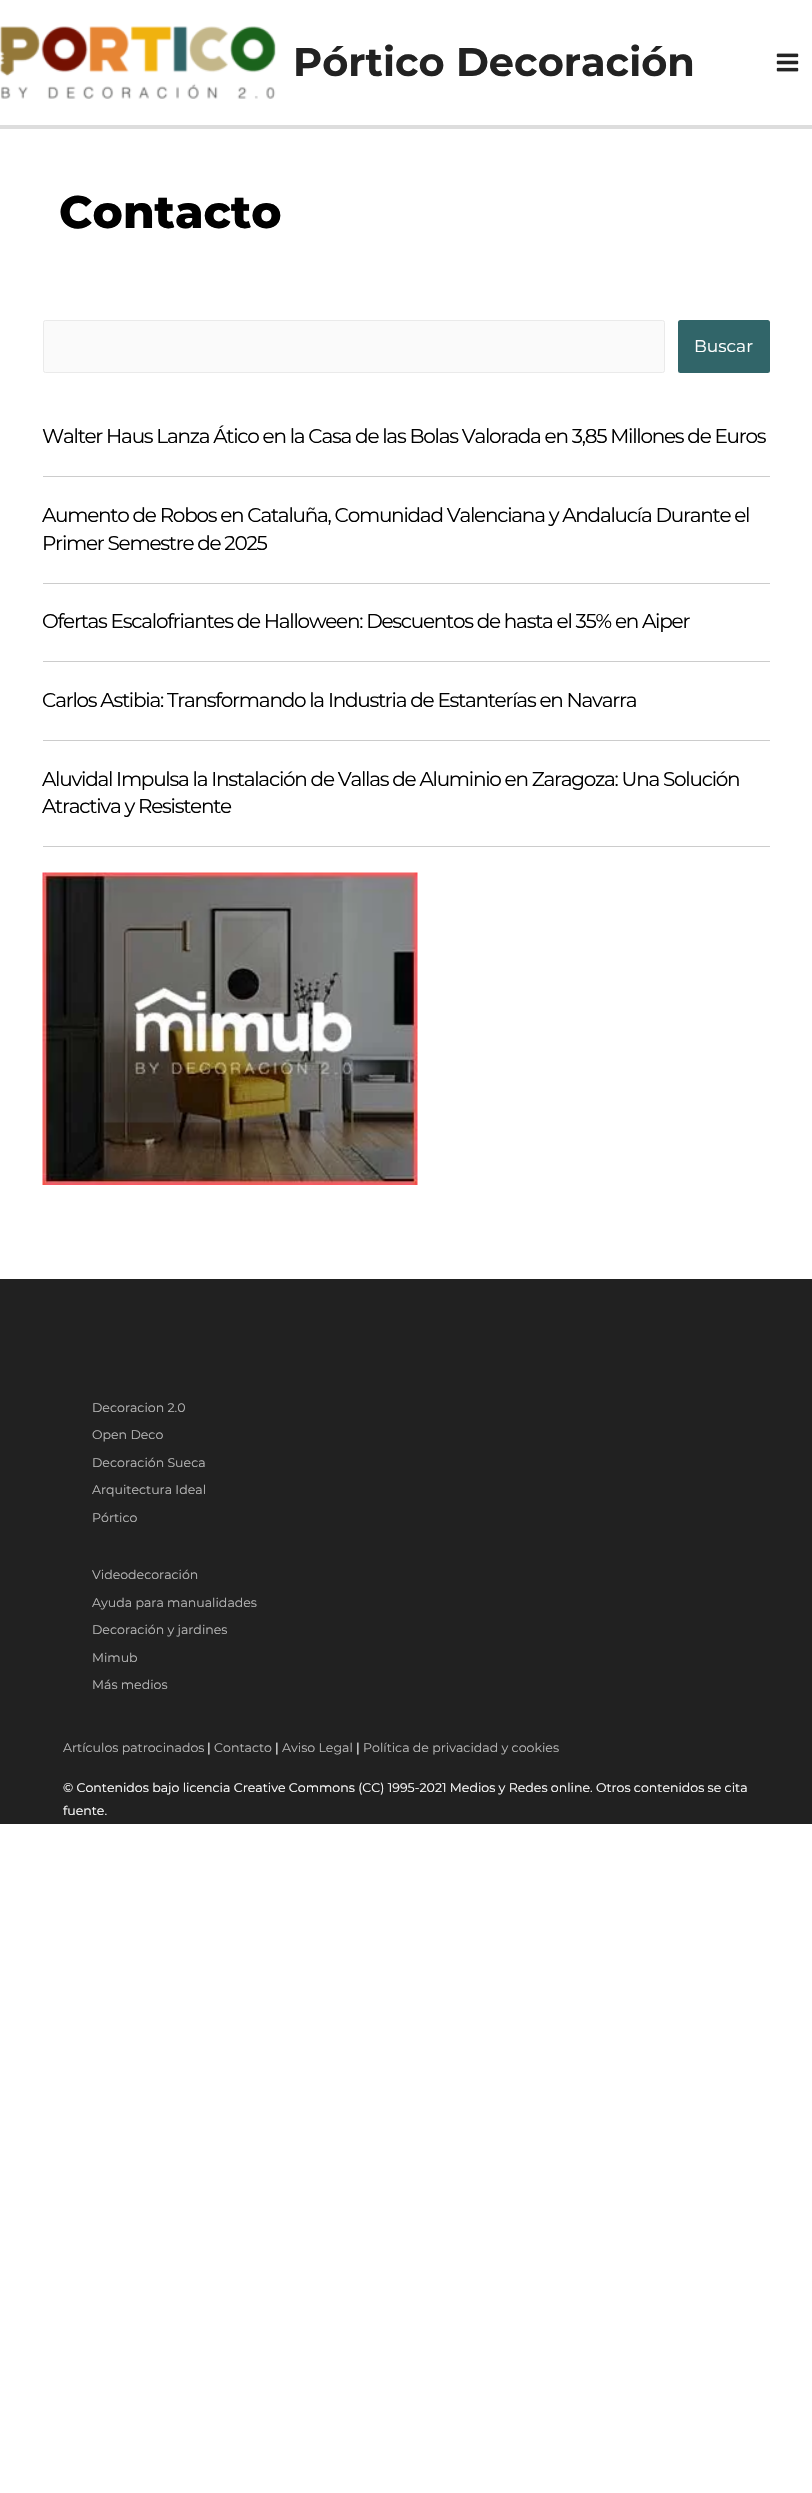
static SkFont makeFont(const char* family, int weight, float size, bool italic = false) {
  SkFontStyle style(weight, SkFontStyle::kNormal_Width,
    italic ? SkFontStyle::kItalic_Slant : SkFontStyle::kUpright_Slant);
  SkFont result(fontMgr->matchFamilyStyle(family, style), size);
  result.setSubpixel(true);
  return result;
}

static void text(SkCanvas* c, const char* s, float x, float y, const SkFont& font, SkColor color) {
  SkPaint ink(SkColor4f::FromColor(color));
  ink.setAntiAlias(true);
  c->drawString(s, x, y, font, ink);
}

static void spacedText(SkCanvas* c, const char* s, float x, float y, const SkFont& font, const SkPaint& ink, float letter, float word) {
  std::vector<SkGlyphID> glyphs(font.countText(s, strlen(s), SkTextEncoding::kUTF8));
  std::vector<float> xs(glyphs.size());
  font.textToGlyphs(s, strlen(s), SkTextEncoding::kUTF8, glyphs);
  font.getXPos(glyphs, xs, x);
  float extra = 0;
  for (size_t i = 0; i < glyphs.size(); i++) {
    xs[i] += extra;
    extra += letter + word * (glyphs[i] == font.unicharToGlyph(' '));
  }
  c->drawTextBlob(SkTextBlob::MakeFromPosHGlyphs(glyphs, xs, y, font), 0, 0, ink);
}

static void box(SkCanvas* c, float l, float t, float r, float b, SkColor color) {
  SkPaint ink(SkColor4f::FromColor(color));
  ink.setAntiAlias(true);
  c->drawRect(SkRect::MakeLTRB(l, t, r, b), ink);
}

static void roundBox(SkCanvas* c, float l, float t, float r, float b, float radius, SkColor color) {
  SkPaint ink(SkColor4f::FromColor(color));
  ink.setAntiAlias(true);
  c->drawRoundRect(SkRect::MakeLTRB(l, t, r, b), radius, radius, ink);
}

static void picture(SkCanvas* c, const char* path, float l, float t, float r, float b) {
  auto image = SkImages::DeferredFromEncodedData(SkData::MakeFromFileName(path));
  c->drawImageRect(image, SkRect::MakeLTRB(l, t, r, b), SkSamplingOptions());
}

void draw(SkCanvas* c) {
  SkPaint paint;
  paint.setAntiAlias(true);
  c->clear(0xffffffff);
  box(c, 0, 125, 812, 129, 0xffdddddd);
  picture(c, "img_01.png", 0, 26, 276, 99);
  SkFont face1 = makeFont("Montserrat", 700, 39.9f);
  text(c, "Pórtico Decoración", 293, 76, face1, 0xff222222);
  picture(c, "img_02.png", 776, 53, 799, 72);
  SkFont face2 = makeFont("Montserrat", 800, 45.5f);
  text(c, "Contacto", 59, 228, face2, 0xff000000);
  paint.setColor(0xfffafafa);
  c->drawRoundRect(SkRect::MakeLTRB(43.5f, 320.5f, 664.5f, 372.5f), 2, 2, paint);
  paint.setStyle(SkPaint::kStroke_Style);
  paint.setStrokeWidth(1);
  paint.setColor(0xffeaeaea);
  c->drawRoundRect(SkRect::MakeLTRB(43.5f, 320.5f, 664.5f, 372.5f), 2, 2, paint);
  roundBox(c, 678, 320, 770, 373, 2.5f, 0xff316569);
  SkFont face3 = makeFont("Montserrat", 400, 17);
  text(c, "Buscar", 694, 352, face3, 0xffffffff);
  box(c, 43, 476, 770, 477, 0xffcccccc);
  SkFont face4 = makeFont("Montserrat", 400, 20);
  paint.setStyle(SkPaint::kFill_Style);
  paint.setColor(0xff000000);
  spacedText(c, "Walter Haus Lanza Ático en la Casa de las Bolas Valorada en 3,85 Millones de Euros", 42, 443, face4, paint, -1.25f, 0);
  box(c, 43, 583, 770, 584, 0xffcccccc);
  spacedText(c, "Aumento de Robos en Cataluña, Comunidad Valenciana y Andalucía Durante el", 42, 522, face4, paint, -1.25f, 0);
  spacedText(c, "Primer Semestre de 2025", 42, 550, face4, paint, -1.25f, 0);
  box(c, 43, 661, 770, 662, 0xffcccccc);
  spacedText(c, "Ofertas Escalofriantes de Halloween: Descuentos de hasta el 35% en Aiper", 42, 628, face4, paint, -1.25f, 0);
  box(c, 43, 740, 770, 741, 0xffcccccc);
  spacedText(c, "Carlos Astibia: Transformando la Industria de Estanterías en Navarra", 42, 707, face4, paint, -1.25f, 0);
  box(c, 43, 846, 770, 847, 0xffcccccc);
  spacedText(c, "Aluvidal Impulsa la Instalación de Vallas de Aluminio en Zaragoza: Una Solución", 42, 786, face4, paint, -1.25f, 0);
  spacedText(c, "Atractiva y Resistente", 42, 813, face4, paint, -1.25f, 0);
  picture(c, "img_03.png", 42, 872, 418, 1185);
  box(c, 0, 1279, 812, 1824, 0xff212121);
  SkFont face5 = makeFont("Montserrat", 400, 12.55f);
  text(c, "Decoracion 2.0", 92, 1412, face5, 0xffb6b6b6);
  text(c, "Open Deco", 92, 1439, face5, 0xffb6b6b6);
  text(c, "Decoración Sueca", 92, 1467, face5, 0xffb6b6b6);
  text(c, "Arquitectura Ideal", 92, 1494, face5, 0xffb6b6b6);
  text(c, "Pórtico", 92, 1522, face5, 0xffb6b6b6);
  text(c, "Videodecoración", 92, 1579, face5, 0xffb6b6b6);
  text(c, "Ayuda para manualidades", 92, 1607, face5, 0xffb6b6b6);
  text(c, "Decoración y jardines", 92, 1634, face5, 0xffb6b6b6);
  text(c, "Mimub", 92, 1662, face5, 0xffb6b6b6);
  text(c, "Más medios", 92, 1689, face5, 0xffb6b6b6);
  text(c, "Artículos patrocinados", 63, 1752, face5, 0xffb6b6b6);
  text(c, "|", 207, 1752, face5, 0xffffffff);
  text(c, "Contacto", 214, 1752, face5, 0xffb6b6b6);
  text(c, "|", 275, 1752, face5, 0xffffffff);
  text(c, "Aviso Legal", 282, 1752, face5, 0xffb6b6b6);
  text(c, "|", 356, 1752, face5, 0xffffffff);
  text(c, "Política de privacidad y cookies", 363, 1752, face5, 0xffb6b6b6);
  text(c, "© Contenidos bajo licencia Creative Commons (CC) 1995-2021 Medios y Redes online. Otros contenidos se cita", 63, 1792, face5, 0xffffffff);
  text(c, "fuente.", 63, 1815, face5, 0xffffffff);
}
